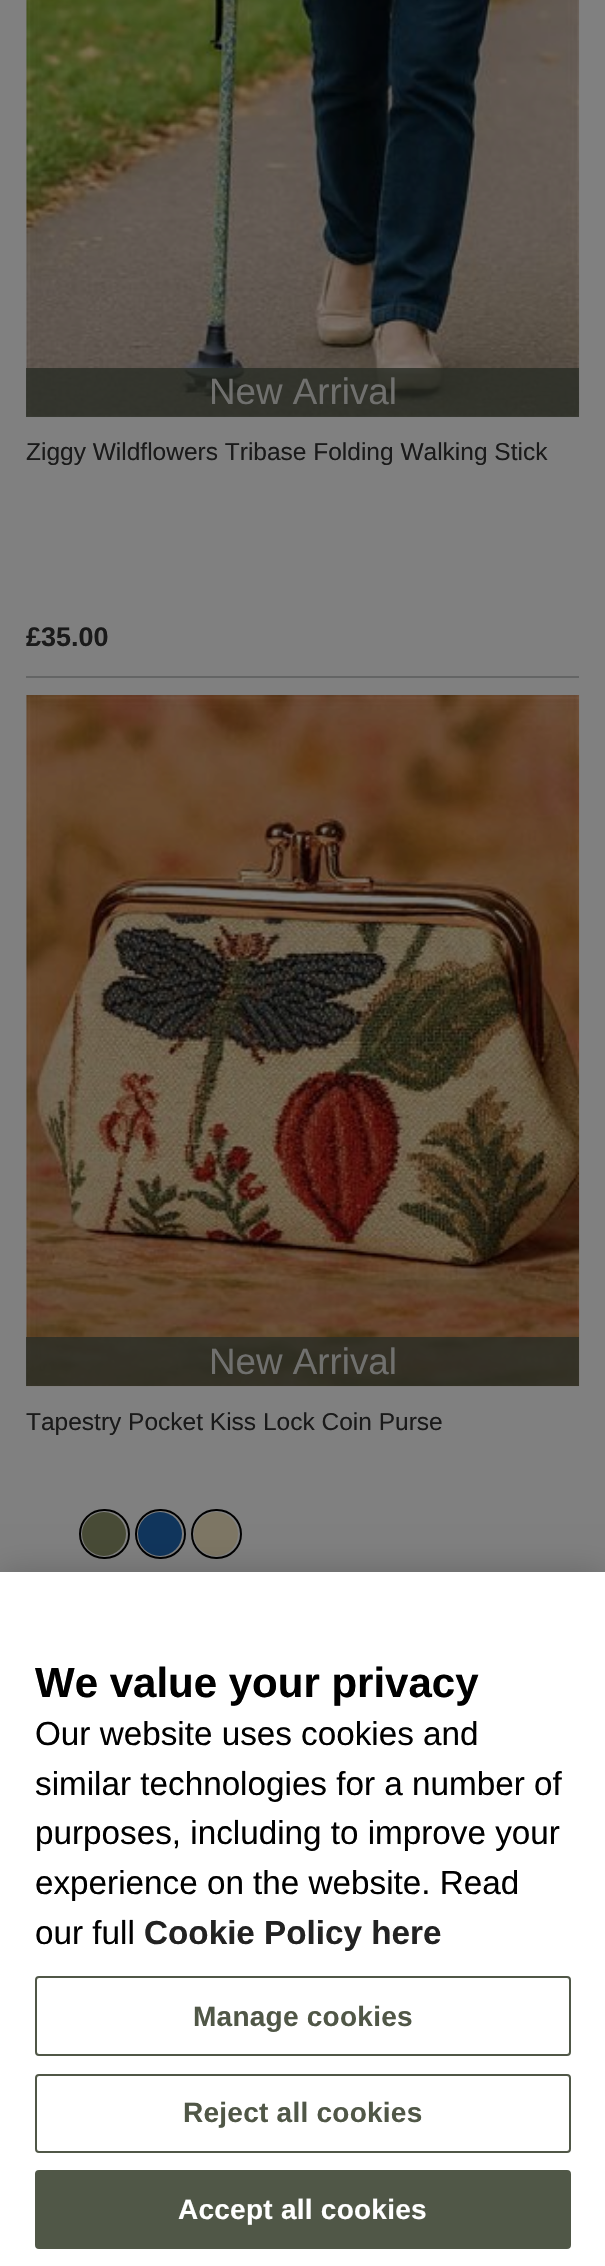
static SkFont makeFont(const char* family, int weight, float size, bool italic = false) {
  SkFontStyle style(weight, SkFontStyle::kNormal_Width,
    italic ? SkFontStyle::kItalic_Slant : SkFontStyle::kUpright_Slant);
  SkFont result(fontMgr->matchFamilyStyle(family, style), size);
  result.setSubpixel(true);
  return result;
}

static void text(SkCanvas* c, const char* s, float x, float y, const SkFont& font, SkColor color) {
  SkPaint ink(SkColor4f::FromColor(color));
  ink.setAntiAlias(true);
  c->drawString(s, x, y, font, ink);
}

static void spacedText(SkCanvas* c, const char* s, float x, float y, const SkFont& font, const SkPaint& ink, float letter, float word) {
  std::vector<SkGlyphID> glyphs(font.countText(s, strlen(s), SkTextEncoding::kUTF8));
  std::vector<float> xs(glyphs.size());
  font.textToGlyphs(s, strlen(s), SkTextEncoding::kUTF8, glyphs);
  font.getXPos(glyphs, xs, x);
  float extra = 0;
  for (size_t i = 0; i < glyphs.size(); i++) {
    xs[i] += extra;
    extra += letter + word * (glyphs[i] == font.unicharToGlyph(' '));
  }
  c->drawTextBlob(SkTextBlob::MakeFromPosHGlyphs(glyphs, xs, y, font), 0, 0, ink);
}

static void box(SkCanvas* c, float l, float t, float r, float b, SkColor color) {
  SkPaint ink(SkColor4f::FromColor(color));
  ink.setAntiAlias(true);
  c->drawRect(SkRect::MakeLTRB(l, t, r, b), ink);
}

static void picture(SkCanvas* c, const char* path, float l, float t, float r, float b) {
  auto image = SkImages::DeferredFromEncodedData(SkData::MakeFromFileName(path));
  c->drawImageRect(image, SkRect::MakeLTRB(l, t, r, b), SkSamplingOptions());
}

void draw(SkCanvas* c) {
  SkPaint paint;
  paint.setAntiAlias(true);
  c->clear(0xff808080);
  picture(c, "img_01.png", 26, 0, 580, 417);
  box(c, 26, 368, 579, 417, 0xcc282c24);
  SkFont face1 = makeFont("Liberation Sans", 400, 36.75f);
  text(c, "New Arrival", 209, 404, face1, 0xff70706e);
  SkFont face2 = makeFont("Liberation Sans", 400, 24.5f);
  text(c, "Ziggy Wildflowers Tribase Folding Walking Stick", 26, 460, face2, 0xff1a1a1a);
  SkFont face3 = makeFont("Liberation Sans", 700, 27);
  text(c, "£35.00", 26, 646, face3, 0xff1a1a1a);
  box(c, 26, 676, 579, 678, 0xff646565);
  picture(c, "img_02.png", 26, 695, 580, 1387);
  box(c, 26, 1337, 579, 1386, 0xcc282c24);
  text(c, "New Arrival", 209, 1374, face1, 0xff70706e);
  text(c, "Tapestry Pocket Kiss Lock Coin Purse", 26, 1430, face2, 0xff1a1a1a);
  paint.setStyle(SkPaint::kStroke_Style);
  paint.setStrokeWidth(2);
  paint.setColor(0xff000000);
  c->drawRoundRect(SkRect::MakeLTRB(80, 1510, 129, 1558), 24, 24, paint);
  paint.setStyle(SkPaint::kFill_Style);
  paint.setColor(0xff484b36);
  c->drawCircle(104, 1534, 22, paint);
  paint.setStyle(SkPaint::kStroke_Style);
  paint.setColor(0xff000000);
  c->drawRoundRect(SkRect::MakeLTRB(136, 1510, 185, 1558), 24, 24, paint);
  paint.setStyle(SkPaint::kFill_Style);
  paint.setColor(0xff10355c);
  c->drawCircle(160, 1534, 22, paint);
  paint.setStyle(SkPaint::kStroke_Style);
  paint.setColor(0xff000000);
  c->drawRoundRect(SkRect::MakeLTRB(192, 1510, 241, 1558), 24, 24, paint);
  paint.setStyle(SkPaint::kFill_Style);
  paint.setColor(0xff7d7664);
  c->drawCircle(216, 1534, 22, paint);
  paint.setColor(0x33000000);
  paint.setMaskFilter(SkMaskFilter::MakeBlur(kNormal_SkBlurStyle, 16));
  c->drawRect(SkRect::MakeLTRB(0, 1572, 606, 2266), paint);
  paint.setMaskFilter(nullptr);
  box(c, 0, 1572, 605, 2266, 0xffffffff);
  SkFont face4 = makeFont("Liberation Sans", 700, 42);
  text(c, "We value your privacy", 35, 1697, face4, 0xff000000);
  SkFont face5 = makeFont("Liberation Sans", 400, 33.25f);
  text(c, "Our website uses cookies and", 35, 1745, face5, 0xff000000);
  text(c, "similar technologies for a number of", 35, 1795, face5, 0xff000000);
  text(c, "purposes, including to improve your", 35, 1844, face5, 0xff000000);
  text(c, "experience on the website. Read", 35, 1894, face5, 0xff000000);
  text(c, "our full", 35, 1944, face5, 0xff000000);
  SkFont face6 = makeFont("Liberation Sans", 700, 33.25f);
  text(c, "Cookie Policy here", 144, 1944, face6, 0xff222222);
  paint.setStyle(SkPaint::kStroke_Style);
  paint.setColor(0xff505747);
  c->drawRoundRect(SkRect::MakeLTRB(36, 1977, 570, 2055), 3, 3, paint);
  SkFont face7 = makeFont("Liberation Sans", 700, 28);
  paint.setStyle(SkPaint::kFill_Style);
  spacedText(c, "Manage cookies", 193, 2026, face7, paint, 0.25f, 0);
  paint.setStyle(SkPaint::kStroke_Style);
  c->drawRoundRect(SkRect::MakeLTRB(36, 2075, 570, 2152), 3, 3, paint);
  paint.setStyle(SkPaint::kFill_Style);
  spacedText(c, "Reject all cookies", 183, 2122, face7, paint, 0.25f, 0);
  c->drawRoundRect(SkRect::MakeLTRB(36, 2171, 570, 2248), 3, 3, paint);
  paint.setStyle(SkPaint::kStroke_Style);
  c->drawRoundRect(SkRect::MakeLTRB(36, 2171, 570, 2248), 3, 3, paint);
  paint.setStyle(SkPaint::kFill_Style);
  paint.setColor(0xffffffff);
  spacedText(c, "Accept all cookies", 178, 2219, face7, paint, 0.25f, 0);
}
